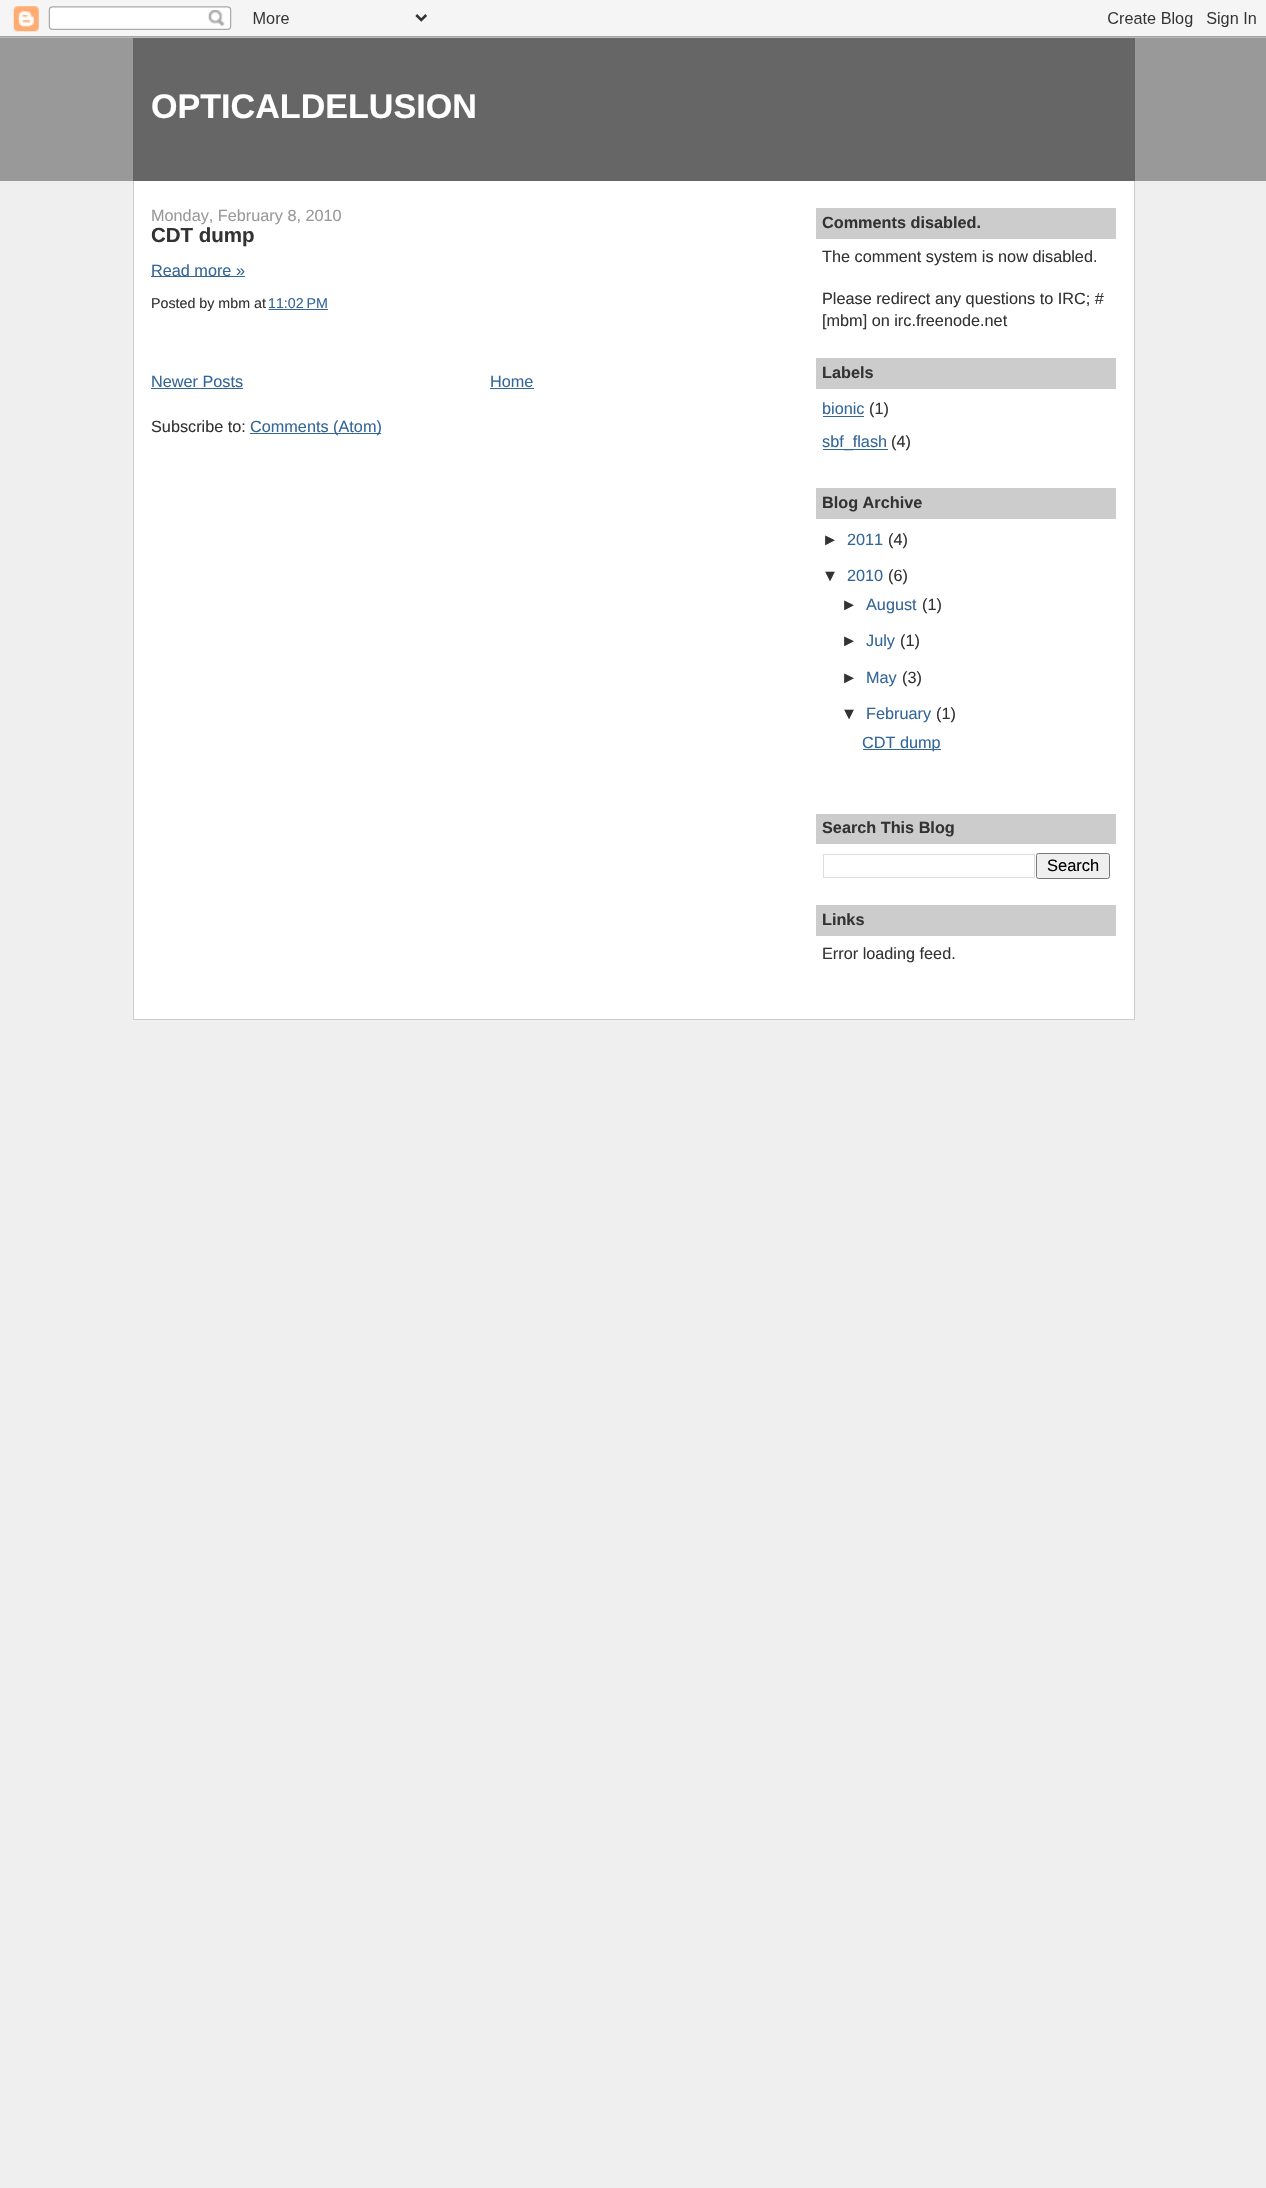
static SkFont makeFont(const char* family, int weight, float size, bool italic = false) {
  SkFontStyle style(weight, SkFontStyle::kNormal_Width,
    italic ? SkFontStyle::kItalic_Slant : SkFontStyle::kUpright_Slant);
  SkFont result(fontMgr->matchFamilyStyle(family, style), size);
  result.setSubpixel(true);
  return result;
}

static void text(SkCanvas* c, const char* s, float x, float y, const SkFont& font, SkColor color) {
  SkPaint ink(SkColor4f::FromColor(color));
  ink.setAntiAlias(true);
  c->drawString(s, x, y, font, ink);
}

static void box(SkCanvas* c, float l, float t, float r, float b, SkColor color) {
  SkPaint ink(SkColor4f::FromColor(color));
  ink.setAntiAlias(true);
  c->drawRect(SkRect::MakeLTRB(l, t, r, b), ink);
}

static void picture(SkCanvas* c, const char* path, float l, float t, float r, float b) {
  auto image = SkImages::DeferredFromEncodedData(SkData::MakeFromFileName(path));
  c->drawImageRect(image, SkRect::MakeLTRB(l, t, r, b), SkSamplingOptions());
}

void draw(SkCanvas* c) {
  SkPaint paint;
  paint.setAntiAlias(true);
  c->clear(0xffefefef);
  picture(c, "img_01.png", 0, 0, 1266, 38);
  box(c, 0, 38, 1266, 181, 0xff999999);
  box(c, 133, 38, 1135, 181, 0xff666666);
  SkFont face1 = makeFont("Liberation Sans", 700, 34.1f);
  text(c, "OPTICALDELUSION", 151, 118, face1, 0xffffffff);
  box(c, 134, 181, 1134, 1019, 0xffffffff);
  box(c, 1134, 181, 1135, 1020, 0xffcccccc);
  box(c, 133, 1019, 1135, 1020, 0xffcccccc);
  box(c, 133, 181, 134, 1020, 0xffcccccc);
  SkFont face2 = makeFont("Liberation Sans", 400, 16.25f);
  text(c, "Monday, February 8, 2010", 151, 221, face2, 0xff999999);
  SkFont face3 = makeFont("Liberation Sans", 700, 20.5f);
  text(c, "CDT dump", 151, 242, face3, 0xff333333);
  box(c, 151, 276, 245, 277, 0xff336699);
  text(c, "Read more »", 151, 276, face2, 0xff336699);
  SkFont face4 = makeFont("Liberation Sans", 400, 14.25f);
  text(c, "Posted by mbm at", 151, 308, face4, 0xff333333);
  paint.setStyle(SkPaint::kStroke_Style);
  paint.setStrokeWidth(1.2f);
  paint.setColor(0xff336699);
  paint.setPathEffect(SkDashPathEffect::Make({{1.25f, 1.25f}}, 0));
  c->drawPath(SkPathBuilder().moveTo(268.5f, 309.5f).lineTo(327.5f, 309.5f).detach(), paint);
  paint.setPathEffect(nullptr);
  text(c, "11:02 PM", 268, 308, face4, 0xff336699);
  box(c, 269, 309, 328, 310, 0xff336699);
  text(c, "Newer Posts", 151, 387, face2, 0xff336699);
  box(c, 151, 388, 243, 389, 0xff336699);
  text(c, "Home", 490, 387, face2, 0xff336699);
  box(c, 490, 388, 534, 389, 0xff336699);
  text(c, "Subscribe to:", 151, 432, face2, 0xff333333);
  box(c, 250, 433, 381, 434, 0xff336699);
  text(c, "Comments (Atom)", 250, 432, face2, 0xff336699);
  box(c, 816, 208, 1116, 239, 0xffcccccc);
  SkFont face5 = makeFont("Liberation Sans", 700, 16.25f);
  text(c, "Comments disabled.", 822, 228, face5, 0xff333333);
  text(c, "The comment system is now disabled.", 822, 262, face2, 0xff333333);
  text(c, "Please redirect any questions to IRC; #", 822, 304, face2, 0xff333333);
  text(c, "[mbm] on irc.freenode.net", 822, 326, face2, 0xff333333);
  box(c, 816, 358, 1116, 389, 0xffcccccc);
  text(c, "Labels", 822, 378, face5, 0xff333333);
  text(c, "bionic", 822, 414, face2, 0xff336699);
  box(c, 823, 416, 864, 417, 0xff336699);
  text(c, "(1)", 869, 414, face2, 0xff333333);
  box(c, 823, 449, 888, 450, 0xff336699);
  text(c, "sbf_flash", 822, 447, face2, 0xff336699);
  text(c, "(4)", 891, 447, face2, 0xff333333);
  box(c, 816, 488, 1116, 519, 0xffcccccc);
  text(c, "Blog Archive", 822, 508, face5, 0xff333333);
  text(c, "►", 822, 545, face2, 0xff333333);
  text(c, "2011", 847, 545, face2, 0xff336699);
  text(c, "(4)", 888, 545, face2, 0xff333333);
  text(c, "▼", 822, 581, face2, 0xff333333);
  text(c, "2010", 847, 581, face2, 0xff336699);
  text(c, "(6)", 888, 581, face2, 0xff333333);
  text(c, "►", 841, 610, face2, 0xff333333);
  text(c, "August", 866, 610, face2, 0xff336699);
  text(c, "(1)", 922, 610, face2, 0xff333333);
  text(c, "►", 841, 646, face2, 0xff333333);
  text(c, "July", 866, 646, face2, 0xff336699);
  text(c, "(1)", 900, 646, face2, 0xff333333);
  text(c, "►", 841, 683, face2, 0xff333333);
  text(c, "May", 866, 683, face2, 0xff336699);
  text(c, "(3)", 902, 683, face2, 0xff333333);
  text(c, "▼", 841, 719, face2, 0xff333333);
  text(c, "February", 866, 719, face2, 0xff336699);
  text(c, "(1)", 936, 719, face2, 0xff333333);
  box(c, 863, 749, 941, 750, 0xff336699);
  text(c, "CDT dump", 862, 748, face2, 0xff336699);
  box(c, 816, 814, 1116, 844, 0xffcccccc);
  text(c, "Search This Blog", 822, 833, face5, 0xff333333);
  paint.setStrokeWidth(1);
  paint.setColor(0xffdddddd);
  c->drawRect(SkRect::MakeLTRB(823.5f, 854.5f, 1034.5f, 877.5f), paint);
  paint.setStyle(SkPaint::kFill_Style);
  paint.setColor(0xffefefef);
  c->drawRoundRect(SkRect::MakeLTRB(1036.5f, 853.5f, 1109.5f, 878.5f), 2, 2, paint);
  paint.setStyle(SkPaint::kStroke_Style);
  paint.setColor(0xff767676);
  c->drawRoundRect(SkRect::MakeLTRB(1036.5f, 853.5f, 1109.5f, 878.5f), 2, 2, paint);
  SkFont face6 = makeFont("Liberation Sans", 400, 16.5f);
  text(c, "Search", 1047, 871, face6, 0xff000000);
  box(c, 816, 905, 1116, 936, 0xffcccccc);
  text(c, "Links", 822, 925, face5, 0xff333333);
  text(c, "Error loading feed.", 822, 959, face2, 0xff333333);
}
